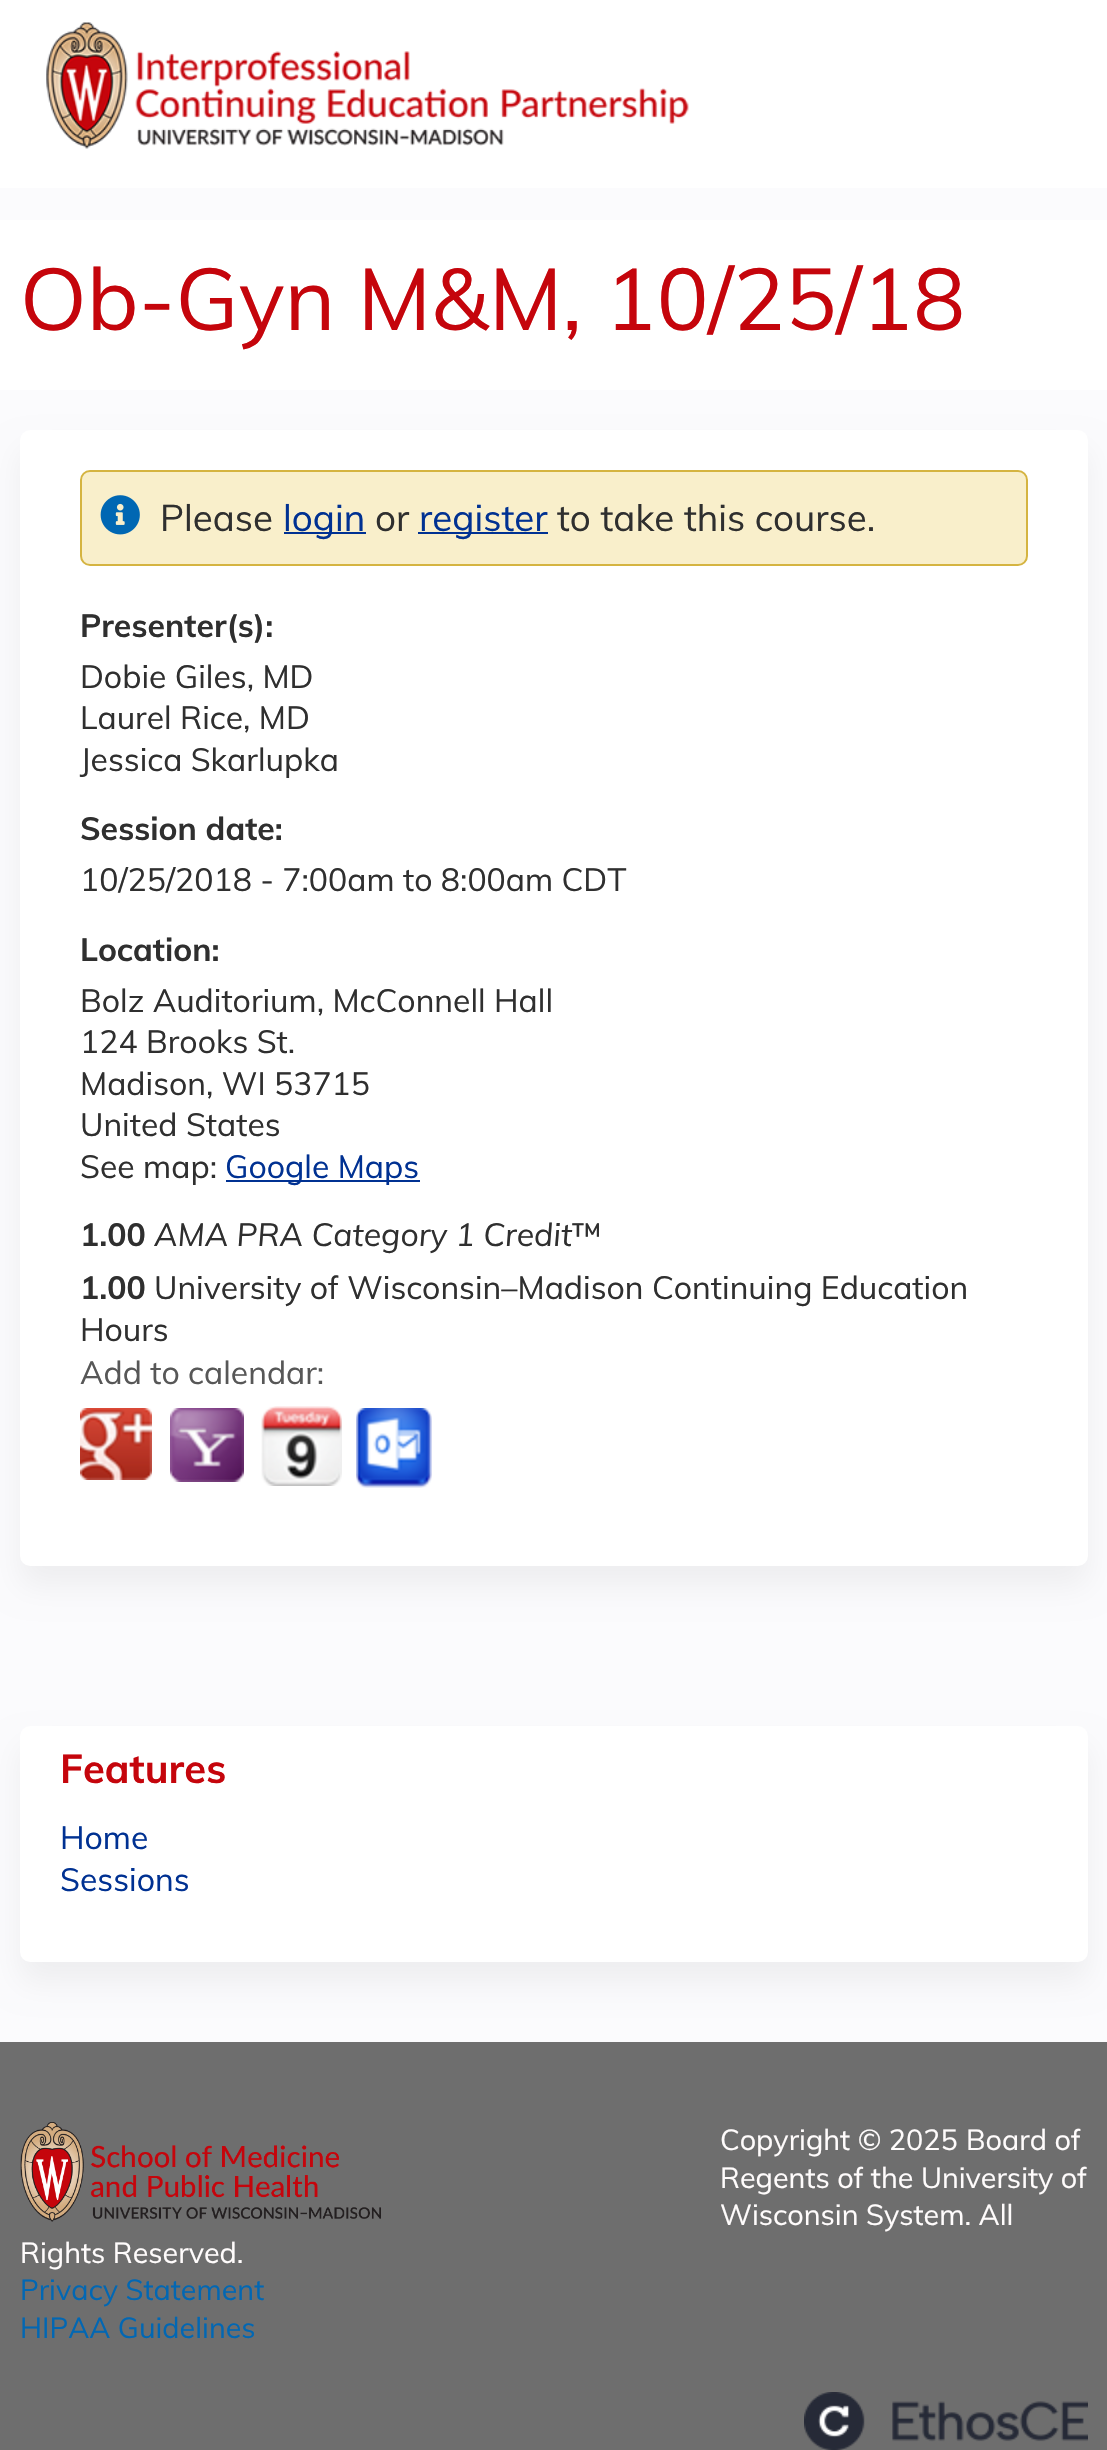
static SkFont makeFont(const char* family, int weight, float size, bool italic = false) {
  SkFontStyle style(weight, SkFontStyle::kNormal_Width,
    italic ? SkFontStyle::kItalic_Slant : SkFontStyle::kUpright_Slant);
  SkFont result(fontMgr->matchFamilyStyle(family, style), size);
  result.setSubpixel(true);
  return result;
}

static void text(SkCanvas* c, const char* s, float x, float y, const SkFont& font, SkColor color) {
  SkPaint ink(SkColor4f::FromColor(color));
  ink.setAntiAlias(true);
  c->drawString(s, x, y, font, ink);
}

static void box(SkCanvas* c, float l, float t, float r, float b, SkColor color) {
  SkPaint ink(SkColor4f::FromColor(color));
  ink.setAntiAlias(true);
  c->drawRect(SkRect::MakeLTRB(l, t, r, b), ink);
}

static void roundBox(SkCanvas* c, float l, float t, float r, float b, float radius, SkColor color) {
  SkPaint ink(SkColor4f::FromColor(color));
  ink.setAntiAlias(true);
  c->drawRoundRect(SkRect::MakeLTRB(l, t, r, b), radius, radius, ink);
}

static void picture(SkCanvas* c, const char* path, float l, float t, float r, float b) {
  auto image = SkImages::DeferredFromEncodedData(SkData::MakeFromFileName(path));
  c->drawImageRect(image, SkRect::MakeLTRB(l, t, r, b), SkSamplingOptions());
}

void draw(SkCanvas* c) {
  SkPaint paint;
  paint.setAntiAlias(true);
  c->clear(0xfffbfbfd);
  box(c, 0, 0, 1107, 188, 0xffffffff);
  picture(c, "img_01.png", 46, 22, 689, 149);
  box(c, 0, 220, 1107, 390, 0xffffffff);
  SkFont face1 = makeFont("Muli", 400, 86.4f);
  text(c, "Ob-Gyn M&M, 10/25/18", 20, 330, face1, 0xffc5050c);
  paint.setColor(0x0d000000);
  paint.setMaskFilter(SkMaskFilter::MakeBlur(kNormal_SkBlurStyle, 15));
  c->drawRoundRect(SkRect::MakeLTRB(20, 450, 1088, 1586), 10, 10, paint);
  paint.setMaskFilter(nullptr);
  roundBox(c, 20, 430, 1088, 1566, 10, 0xffffffff);
  paint.setColor(0xfff9efcb);
  c->drawRoundRect(SkRect::MakeLTRB(81, 471, 1027, 565), 9, 9, paint);
  paint.setStyle(SkPaint::kStroke_Style);
  paint.setStrokeWidth(2);
  paint.setColor(0xffd5b441);
  c->drawRoundRect(SkRect::MakeLTRB(81, 471, 1027, 565), 9, 9, paint);
  picture(c, "img_02.png", 100, 495, 140, 535);
  SkFont face2 = makeFont("Muli", 400, 36.75f);
  text(c, "Please", 160, 531, face2, 0xff2f2f2f);
  box(c, 284, 532, 366, 534, 0xff003192);
  text(c, "login", 283, 531, face2, 0xff003192);
  text(c, "or", 375, 531, face2, 0xff2f2f2f);
  box(c, 418, 532, 548, 534, 0xff003192);
  text(c, "register", 419, 531, face2, 0xff003192);
  text(c, "to take this course.", 557, 531, face2, 0xff2f2f2f);
  SkFont face3 = makeFont("Muli", 700, 32);
  text(c, "Presenter(s):", 80, 637, face3, 0xff2f2f2f);
  SkFont face4 = makeFont("Muli", 400, 32);
  text(c, "Dobie Giles, MD", 80, 688, face4, 0xff2f2f2f);
  text(c, "Laurel Rice, MD", 80, 729, face4, 0xff2f2f2f);
  text(c, "Jessica Skarlupka", 80, 771, face4, 0xff2f2f2f);
  text(c, "Session date:", 80, 840, face3, 0xff2f2f2f);
  text(c, "10/25/2018 - 7:00am to 8:00am CDT", 80, 891, face4, 0xff2f2f2f);
  text(c, "Location:", 80, 961, face3, 0xff2f2f2f);
  text(c, "Bolz Auditorium, McConnell Hall", 80, 1012, face4, 0xff2f2f2f);
  text(c, "124 Brooks St.", 80, 1053, face4, 0xff2f2f2f);
  text(c, "Madison, WI 53715", 80, 1095, face4, 0xff2f2f2f);
  text(c, "United States", 80, 1136, face4, 0xff2f2f2f);
  text(c, "See map:", 80, 1178, face4, 0xff2f2f2f);
  box(c, 226, 1180, 420, 1182, 0xff003192);
  text(c, "Google Maps", 225, 1178, face4, 0xff003192);
  text(c, "1.00", 80, 1246, face3, 0xff2f2f2f);
  SkFont face5 = makeFont("Muli", 400, 32, true);
  text(c, "AMA PRA Category 1 Credit", 154, 1246, face5, 0xff2f2f2f);
  text(c, "™", 572, 1246, face4, 0xff2f2f2f);
  text(c, "1.00", 80, 1299, face3, 0xff2f2f2f);
  text(c, "University of Wisconsin–Madison Continuing Education", 154, 1299, face4, 0xff2f2f2f);
  text(c, "Hours", 80, 1341, face4, 0xff2f2f2f);
  text(c, "Add to calendar:", 80, 1384, face4, 0xff575757);
  picture(c, "img_03.png", 80, 1408, 152, 1480);
  picture(c, "img_04.png", 170, 1408, 244, 1482);
  picture(c, "img_05.png", 261, 1406, 342, 1486);
  picture(c, "img_06.png", 356, 1408, 432, 1488);
  paint.setStyle(SkPaint::kFill_Style);
  paint.setColor(0x0d000000);
  paint.setMaskFilter(SkMaskFilter::MakeBlur(kNormal_SkBlurStyle, 15));
  c->drawRoundRect(SkRect::MakeLTRB(20, 1746, 1088, 1982), 10, 10, paint);
  paint.setMaskFilter(nullptr);
  roundBox(c, 20, 1726, 1088, 1962, 10, 0xffffffff);
  SkFont face6 = makeFont("Muli", 700, 40);
  text(c, "Features", 60, 1783, face6, 0xffc5050c);
  text(c, "Home", 60, 1849, face4, 0xff003192);
  text(c, "Sessions", 60, 1891, face4, 0xff003192);
  box(c, 0, 2042, 1107, 2450, 0xff6e6e6e);
  picture(c, "img_07.png", 20, 2122, 381, 2222);
  SkFont face7 = makeFont("Muli", 400, 28.75f);
  text(c, "Copyright © 2025", 720, 2150, face7, 0xfffffcfc);
  text(c, "Board of", 966, 2150, face7, 0xfffffcfc);
  text(c, "Regents of the University of", 720, 2188, face7, 0xfffffcfc);
  text(c, "Wisconsin System. All", 720, 2225, face7, 0xfffffcfc);
  text(c, "Rights Reserved.", 20, 2263, face7, 0xfffffcfc);
  text(c, "Privacy Statement", 20, 2300, face7, 0xff0267b3);
  text(c, "HIPAA Guidelines", 20, 2338, face7, 0xff0267b3);
  picture(c, "img_08.png", 804, 2392, 1088, 2450);
}
